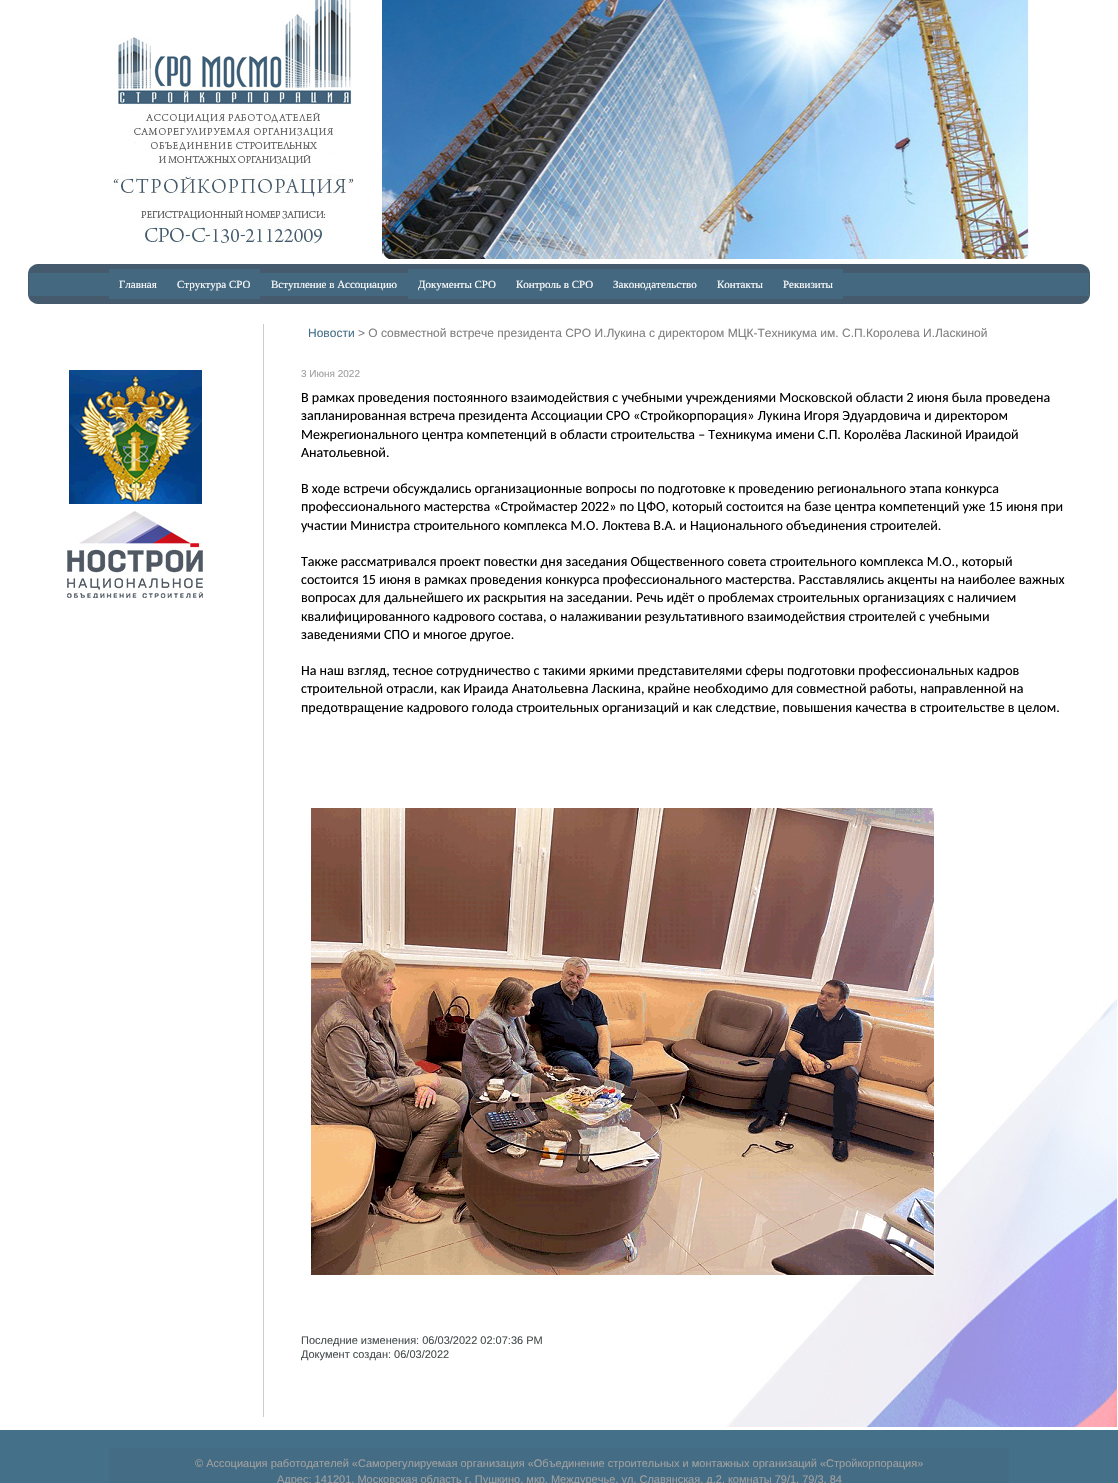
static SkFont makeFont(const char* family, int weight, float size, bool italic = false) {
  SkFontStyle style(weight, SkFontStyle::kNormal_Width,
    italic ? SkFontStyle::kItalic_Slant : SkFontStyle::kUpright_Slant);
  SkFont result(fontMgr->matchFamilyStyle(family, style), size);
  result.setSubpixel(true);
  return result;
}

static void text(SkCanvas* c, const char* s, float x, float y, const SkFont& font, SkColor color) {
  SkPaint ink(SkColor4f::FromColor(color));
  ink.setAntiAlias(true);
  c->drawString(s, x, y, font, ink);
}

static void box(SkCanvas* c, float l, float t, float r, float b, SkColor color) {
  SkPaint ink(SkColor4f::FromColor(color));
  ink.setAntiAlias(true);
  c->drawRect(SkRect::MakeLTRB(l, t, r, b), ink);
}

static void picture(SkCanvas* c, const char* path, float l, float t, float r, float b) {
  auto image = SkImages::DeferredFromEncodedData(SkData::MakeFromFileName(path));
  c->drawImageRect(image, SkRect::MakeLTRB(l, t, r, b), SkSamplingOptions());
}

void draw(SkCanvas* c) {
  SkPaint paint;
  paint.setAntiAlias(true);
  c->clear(0xffffffff);
  picture(c, "img_01.png", 675, 999, 1118, 1427);
  picture(c, "img_02.png", 113, 0, 354, 198);
  picture(c, "img_03.png", 141, 209, 328, 246);
  picture(c, "img_04.png", 382, 0, 1029, 259);
  picture(c, "img_05.png", 28, 264, 43, 304);
  picture(c, "img_06.png", 43, 264, 1075, 304);
  box(c, 109, 269, 260, 299, 0xff446880);
  SkFont face1 = makeFont("Liberation Serif", 400, 11);
  text(c, "Главная", 119, 288, face1, 0xffffffff);
  text(c, "Структура СРО", 177, 288, face1, 0xffffffff);
  text(c, "Вступление в Ассоциацию", 271, 288, face1, 0xffffffff);
  box(c, 408, 269, 843, 299, 0xff446880);
  text(c, "Документы СРО", 418, 288, face1, 0xffffffff);
  text(c, "Контроль в СРО", 516, 288, face1, 0xffffffff);
  text(c, "Законодательство", 613, 288, face1, 0xffffffff);
  text(c, "Контакты", 717, 288, face1, 0xffffffff);
  text(c, "Реквизиты", 783, 288, face1, 0xffffffff);
  picture(c, "img_07.png", 1075, 264, 1090, 304);
  picture(c, "img_08.png", 69, 370, 202, 504);
  picture(c, "img_09.png", 67, 511, 203, 598);
  box(c, 263, 324, 264, 1417, 0xffcccccc);
  SkFont face2 = makeFont("Liberation Sans", 400, 12);
  text(c, "Новости", 308, 337, face2, 0xff447089);
  text(c, "> О совместной встрече президента СРО И.Лукина с директором МЦК-Техникума им. С.П.Королева И.Ласкиной", 358, 337, face2, 0xff808080);
  SkFont face3 = makeFont("Liberation Sans", 400, 10);
  text(c, "3 Июня 2022", 301, 377, face3, 0xffa0a0a0);
  SkFont face4 = makeFont("Carlito", 400, 14);
  text(c, "В рамках проведения постоянного взаимодействия с учебными учреждениями Московской области 2 июня была проведена", 301, 402, face4, 0xff010001);
  text(c, "запланированная встреча президента Ассоциации СРО «Стройкорпорация» Лукина Игоря Эдуардовича и директором", 301, 420, face4, 0xff010001);
  text(c, "Межрегионального центра компетенций в области строительства – Техникума имени С.П. Королёва Ласкиной Ираидой", 301, 439, face4, 0xff010001);
  text(c, "Анатольевной.", 301, 457, face4, 0xff010001);
  text(c, "В ходе встречи обсуждались организационные вопросы по подготовке к проведению регионального этапа конкурса", 301, 493, face4, 0xff010001);
  text(c, "профессионального мастерства «Строймастер 2022» по ЦФО, который состоится на базе центра компетенций уже 15 июня при", 301, 511, face4, 0xff010001);
  text(c, "участии Министра строительного комплекса М.О. Локтева В.А. и Национального объединения строителей.", 301, 530, face4, 0xff010001);
  text(c, "Также рассматривался проект повестки дня заседания Общественного совета строительного комплекса М.О., который", 301, 566, face4, 0xff010001);
  text(c, "состоится 15 июня в рамках проведения конкурса профессионального мастерства. Расставлялись акценты на наиболее важных", 301, 584, face4, 0xff010001);
  text(c, "вопросах для дальнейшего их раскрытия на заседании. Речь идёт о проблемах строительных организациях с наличием", 301, 602, face4, 0xff010001);
  text(c, "квалифицированного кадрового состава, о налаживании результативного взаимодействия строителей с учебными", 301, 621, face4, 0xff010001);
  text(c, "заведениями СПО и многое другое.", 301, 639, face4, 0xff010001);
  text(c, "На наш взгляд, тесное сотрудничество с такими яркими представителями сферы подготовки профессиональных кадров", 301, 675, face4, 0xff010001);
  text(c, "строительной отрасли, как Ираида Анатольевна Ласкина, крайне необходимо для совместной работы, направленной на", 301, 693, face4, 0xff010001);
  text(c, "предотвращение кадрового голода строительных организаций и как следствие, повышения качества в строительстве в целом.", 301, 712, face4, 0xff010001);
  picture(c, "img_10.png", 311, 808, 935, 1276);
  SkFont face5 = makeFont("Liberation Sans", 400, 11);
  text(c, "Последние изменения: 06/03/2022 02:07:36 PM", 301, 1344, face5, 0xff474f4e);
  text(c, "Документ создан: 06/03/2022", 301, 1358, face5, 0xff474f4e);
  box(c, 0, 1430, 1118, 1483, 0xff447089);
  box(c, 109, 1448, 1009, 1483, 0xff446c84);
  text(c, "© Ассоциация работодателей «Саморегулируемая организация «Объединение строительных и монтажных организаций «Стройкорпорация»", 195, 1467, face5, 0xffa0a0a0);
  text(c, "Адрес: 141201, Московская область г. Пушкино, мкр. Междуречье, ул. Славянская, д.2, комнаты 79/1, 79/3, 84", 277, 1483, face5, 0xffa0a0a0);
}
